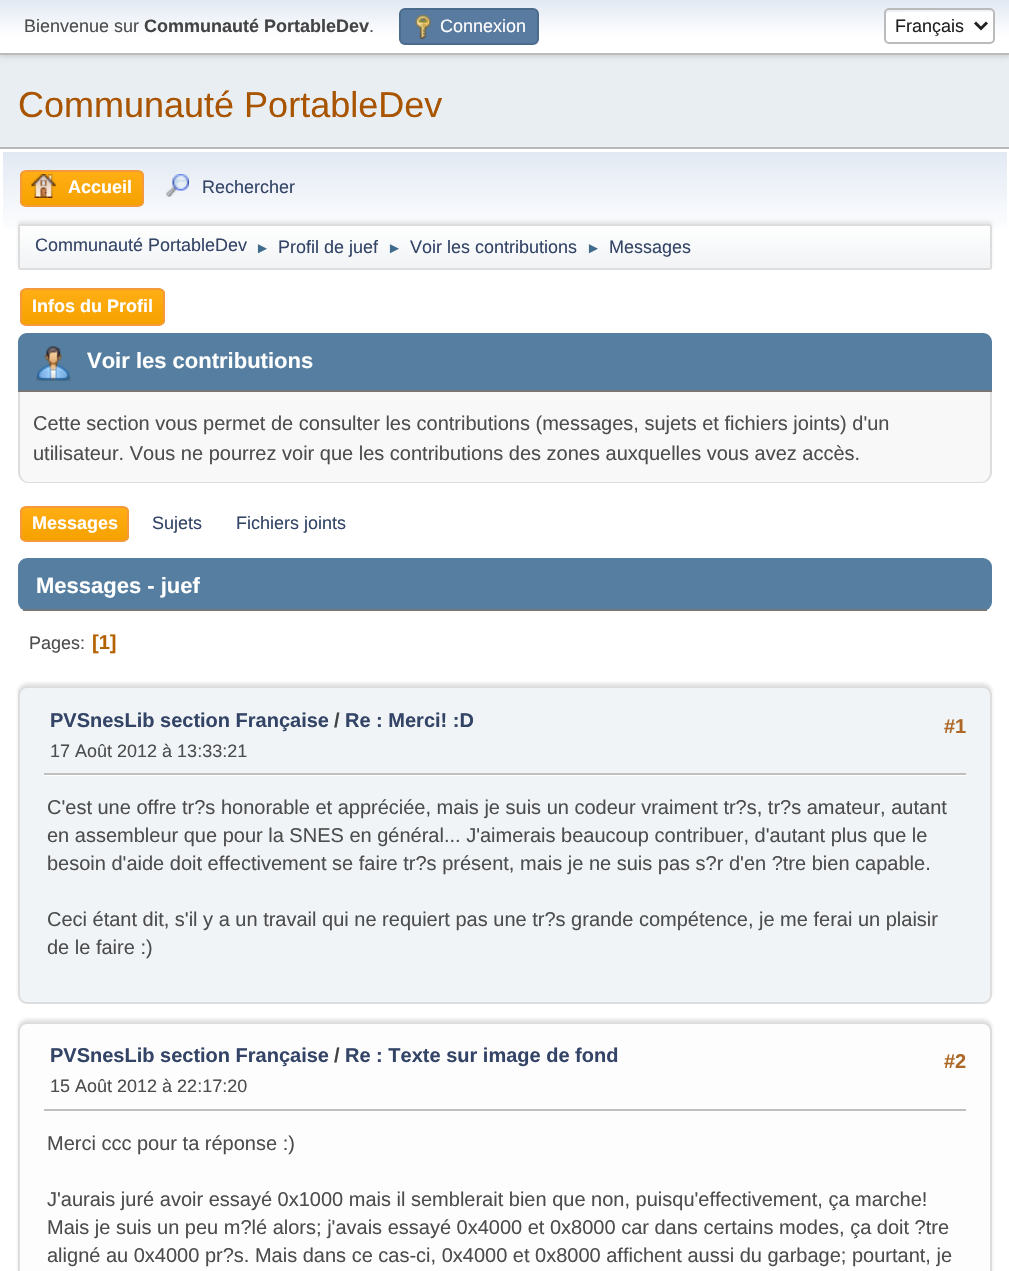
static SkFont makeFont(const char* family, int weight, float size, bool italic = false) {
  SkFontStyle style(weight, SkFontStyle::kNormal_Width,
    italic ? SkFontStyle::kItalic_Slant : SkFontStyle::kUpright_Slant);
  SkFont result(fontMgr->matchFamilyStyle(family, style), size);
  result.setSubpixel(true);
  return result;
}

static void text(SkCanvas* c, const char* s, float x, float y, const SkFont& font, SkColor color) {
  SkPaint ink(SkColor4f::FromColor(color));
  ink.setAntiAlias(true);
  c->drawString(s, x, y, font, ink);
}

static void box(SkCanvas* c, float l, float t, float r, float b, SkColor color) {
  SkPaint ink(SkColor4f::FromColor(color));
  ink.setAntiAlias(true);
  c->drawRect(SkRect::MakeLTRB(l, t, r, b), ink);
}

static void roundBox(SkCanvas* c, float l, float t, float r, float b, float radius, SkColor color) {
  SkPaint ink(SkColor4f::FromColor(color));
  ink.setAntiAlias(true);
  c->drawRoundRect(SkRect::MakeLTRB(l, t, r, b), radius, radius, ink);
}

static void picture(SkCanvas* c, const char* path, float l, float t, float r, float b) {
  auto image = SkImages::DeferredFromEncodedData(SkData::MakeFromFileName(path));
  c->drawImageRect(image, SkRect::MakeLTRB(l, t, r, b), SkSamplingOptions());
}

void draw(SkCanvas* c) {
  SkPaint paint;
  paint.setAntiAlias(true);
  c->clear(0xffe9eef2);
  paint.setColor(0x29000000);
  paint.setMaskFilter(SkMaskFilter::MakeBlur(kNormal_SkBlurStyle, 3));
  c->drawRect(SkRect::MakeLTRB(0, 2, 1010, 56), paint);
  paint.setMaskFilter(nullptr);
  {
    const SkColor colors[] = {0xffe2e9f3, 0xffffffff};
    const float stops[] = {0, 0.7f};
    const SkPoint ends[] = {{505, 0}, {505, 53}};
    paint.setShader(SkGradientShader::MakeLinear(ends, colors, stops, 2, SkTileMode::kClamp));
    paint.setAlpha(255);
  }
  c->drawRect(SkRect::MakeLTRB(0, 0, 1009, 53), paint);
  box(c, 0, 53, 1009, 55, 0xffbbbbbb);
  SkFont face1 = makeFont("Liberation Sans", 400, 18);
  text(c, "Bienvenue sur", 24, 32, face1, 0xff4d4d4d);
  SkFont face2 = makeFont("Liberation Sans", 700, 18);
  text(c, "Communauté PortableDev", 144, 32, face2, 0xff444444);
  text(c, ".", 369, 32, face1, 0xff4d4d4d);
  paint.setShader(nullptr);
  paint.setColor(0xff597b9f);
  c->drawRoundRect(SkRect::MakeLTRB(400, 9, 538, 44), 5, 5, paint);
  paint.setStyle(SkPaint::kStroke_Style);
  paint.setStrokeWidth(2);
  paint.setColor(0xff4a6b8c);
  c->drawRoundRect(SkRect::MakeLTRB(400, 9, 538, 44), 5, 5, paint);
  picture(c, "img_01.png", 415, 15, 431, 39);
  text(c, "Connexion", 440, 32, face1, 0xffffffff);
  roundBox(c, 884, 8, 995, 44, 5, 0xffffffff);
  paint.setStyle(SkPaint::kFill_Style);
  paint.setColor(0xffecf1f8);
  c->drawPath(SkPathBuilder().moveTo(890, 12).cubicTo(900, 12, 992, 11, 993, 12).cubicTo(993, 6, 980, 9, 973, 9).lineTo(905, 9).cubicTo(882, 9, 885, 5, 885, 26).cubicTo(885, 28, 884, 39, 886, 41).lineTo(886, 15).cubicTo(886, 13, 888, 12, 890, 12).close().detach(), paint);
  paint.setStyle(SkPaint::kStroke_Style);
  paint.setColor(0xffbbbbbb);
  c->drawRoundRect(SkRect::MakeLTRB(885, 9, 994, 43), 4, 4, paint);
  paint.setStrokeWidth(3);
  paint.setColor(0xff222222);
  c->drawPath(SkPathBuilder().moveTo(975, 22.5f).lineTo(981, 28.5f).lineTo(987, 22.5f).detach(), paint);
  text(c, "Français", 895, 32, face1, 0xff222222);
  SkFont face3 = makeFont("Liberation Sans", 400, 36);
  text(c, "Communauté PortableDev", 18, 117, face3, 0xffa85400);
  box(c, 0, 149, 1009, 1271, 0xffffffff);
  box(c, 0, 147, 1009, 149, 0xffb8b8b8);
  paint.setStyle(SkPaint::kFill_Style);
  {
    const SkColor colors[] = {0xffe2e9f3, 0xffffffff};
    const float stops[] = {0, 0.7f};
    const SkPoint ends[] = {{505, 151}, {505, 273}};
    paint.setShader(SkGradientShader::MakeLinear(ends, colors, stops, 2, SkTileMode::kClamp));
    paint.setAlpha(255);
  }
  c->drawRect(SkRect::MakeLTRB(3, 152, 1007, 229), paint);
  c->save();
  c->clipPath(SkPathBuilder().moveTo(26, 170).lineTo(138, 170).cubicTo(141.5f, 170, 144, 172.5f, 144, 176).lineTo(144, 201).cubicTo(144, 204.5f, 141.5f, 207, 138, 207).lineTo(26, 207).cubicTo(22.5f, 207, 20, 204.5f, 20, 201).lineTo(20, 176).cubicTo(20, 172.5f, 22.5f, 170, 26, 170).close().detach(), true);
  {
    const SkColor colors[] = {0xffffae14, 0xfff5a100};
    const float stops[] = {0, 1};
    const SkPoint ends[] = {{82, 171}, {82, 206}};
    paint.setShader(SkGradientShader::MakeLinear(ends, colors, stops, 2, SkTileMode::kClamp));
    paint.setAlpha(255);
  }
  c->drawRect(SkRect::MakeLTRB(20, 171, 144, 206), paint);
  c->restore();
  paint.setStyle(SkPaint::kStroke_Style);
  paint.setStrokeWidth(2);
  paint.setShader(nullptr);
  paint.setColor(0xfff49a3a);
  c->drawRoundRect(SkRect::MakeLTRB(21, 171, 143, 206), 5, 5, paint);
  picture(c, "img_02.png", 31, 174, 56, 198);
  text(c, "Accueil", 68, 193, face2, 0xffffffff);
  picture(c, "img_03.png", 166, 174, 189, 197);
  text(c, "Rechercher", 202, 193, face1, 0xff334466);
  paint.setStyle(SkPaint::kFill_Style);
  paint.setColor(0x14000000);
  paint.setMaskFilter(SkMaskFilter::MakeBlur(kNormal_SkBlurStyle, 1.5f));
  c->drawRoundRect(SkRect::MakeLTRB(18, 221, 992, 267), 3, 3, paint);
  paint.setMaskFilter(nullptr);
  c->save();
  c->clipPath(SkPathBuilder().moveTo(21, 224).lineTo(989, 224).cubicTo(990.5f, 224, 992, 225.5f, 992, 227).lineTo(992, 267).cubicTo(992, 268.5f, 990.5f, 270, 989, 270).lineTo(21, 270).cubicTo(19.5f, 270, 18, 268.5f, 18, 267).lineTo(18, 227).cubicTo(18, 225.5f, 19.5f, 224, 21, 224).close().detach(), true);
  {
    const SkColor colors[] = {0xffffffff, 0xfff1f3f5};
    const float stops[] = {0, 0.95f};
    const SkPoint ends[] = {{505, 225}, {505, 269}};
    paint.setShader(SkGradientShader::MakeLinear(ends, colors, stops, 2, SkTileMode::kClamp));
    paint.setAlpha(255);
  }
  c->drawRect(SkRect::MakeLTRB(18, 225, 992, 269), paint);
  c->restore();
  paint.setStyle(SkPaint::kStroke_Style);
  paint.setShader(nullptr);
  paint.setColor(0xffdddddd);
  c->drawRoundRect(SkRect::MakeLTRB(19, 225, 991, 269), 2, 2, paint);
  text(c, "Communauté PortableDev", 35, 251, face1, 0xff334466);
  SkFont face4 = makeFont("Liberation Sans", 400, 15);
  text(c, "►", 255, 253, face4, 0xff3f6b8c);
  text(c, "Profil de juef", 278, 253, face1, 0xff334466);
  text(c, "►", 387, 253, face4, 0xff3f6b8c);
  text(c, "Voir les contributions", 410, 253, face1, 0xff334466);
  text(c, "►", 586, 253, face4, 0xff3f6b8c);
  text(c, "Messages", 609, 253, face1, 0xff334466);
  c->save();
  c->clipPath(SkPathBuilder().moveTo(26, 288).lineTo(159, 288).cubicTo(162.5f, 288, 165, 290.5f, 165, 294).lineTo(165, 320).cubicTo(165, 323.5f, 162.5f, 326, 159, 326).lineTo(26, 326).cubicTo(22.5f, 326, 20, 323.5f, 20, 320).lineTo(20, 294).cubicTo(20, 290.5f, 22.5f, 288, 26, 288).close().detach(), true);
  paint.setStyle(SkPaint::kFill_Style);
  {
    const SkColor colors[] = {0xffffae14, 0xfff5a100};
    const float stops[] = {0, 1};
    const SkPoint ends[] = {{92, 290}, {92, 324}};
    paint.setShader(SkGradientShader::MakeLinear(ends, colors, stops, 2, SkTileMode::kClamp));
    paint.setAlpha(255);
  }
  c->drawRect(SkRect::MakeLTRB(20, 290, 165, 324), paint);
  c->restore();
  paint.setStyle(SkPaint::kStroke_Style);
  paint.setShader(nullptr);
  paint.setColor(0xfff49a3a);
  c->drawRoundRect(SkRect::MakeLTRB(21, 289, 164, 325), 5, 5, paint);
  text(c, "Infos du Profil", 32, 312, face2, 0xffffffff);
  paint.setStyle(SkPaint::kFill_Style);
  paint.setColor(0xff557ea0);
  c->drawPath(SkPathBuilder().moveTo(27, 333).lineTo(983, 333).cubicTo(988, 333, 992, 337, 992, 342).lineTo(992, 392).lineTo(18, 392).lineTo(18, 342).cubicTo(18, 337, 22, 333, 27, 333).close().detach(), paint);
  box(c, 18, 390, 992, 392, 0xff777777);
  picture(c, "img_04.png", 36, 346, 71, 381);
  SkFont face5 = makeFont("Liberation Sans", 700, 22);
  text(c, "Voir les contributions", 87, 368, face5, 0xffffffff);
  paint.setColor(0xfff8f8f8);
  c->drawPath(SkPathBuilder().moveTo(18, 392).lineTo(992, 392).lineTo(992, 472).cubicTo(992, 478, 987, 483, 981, 483).lineTo(29, 483).cubicTo(23, 483, 18, 478, 18, 472).close().detach(), paint);
  paint.setColor(0xffdddddd);
  c->drawPath(SkPathBuilder(SkPathFillType::kEvenOdd).moveTo(18, 392).lineTo(992, 392).lineTo(992, 472).cubicTo(992, 478, 987, 483, 981, 483).lineTo(28, 483).cubicTo(23, 483, 18, 478, 18, 472).close().moveTo(20, 392).lineTo(990, 392).lineTo(990, 472).cubicTo(990, 477, 986, 482, 981, 482).lineTo(28, 482).cubicTo(24, 482, 20, 477, 20, 472).close().detach(), paint);
  SkFont face6 = makeFont("Liberation Sans", 400, 20);
  text(c, "Cette section vous permet de consulter les contributions (messages, sujets et fichiers joints) d'un", 33, 430, face6, 0xff4d4d4d);
  text(c, "utilisateur. Vous ne pourrez voir que les contributions des zones auxquelles vous avez accès.", 33, 460, face6, 0xff4d4d4d);
  c->save();
  c->clipPath(SkPathBuilder().moveTo(26, 506).lineTo(123, 506).cubicTo(126.5f, 506, 129, 508.5f, 129, 512).lineTo(129, 536).cubicTo(129, 539.5f, 126.5f, 542, 123, 542).lineTo(26, 542).cubicTo(22.5f, 542, 20, 539.5f, 20, 536).lineTo(20, 512).cubicTo(20, 508.5f, 22.5f, 506, 26, 506).close().detach(), true);
  {
    const SkColor colors[] = {0xffffae14, 0xfff5a100};
    const float stops[] = {0, 1};
    const SkPoint ends[] = {{74, 507}, {74, 540}};
    paint.setShader(SkGradientShader::MakeLinear(ends, colors, stops, 2, SkTileMode::kClamp));
    paint.setAlpha(255);
  }
  c->drawRect(SkRect::MakeLTRB(20, 507, 129, 540), paint);
  c->restore();
  paint.setStyle(SkPaint::kStroke_Style);
  paint.setShader(nullptr);
  paint.setColor(0xfff49a3a);
  c->drawRoundRect(SkRect::MakeLTRB(21, 507, 128, 541), 5, 5, paint);
  text(c, "Messages", 32, 529, face2, 0xffffffff);
  text(c, "Sujets", 152, 529, face1, 0xff334466);
  text(c, "Fichiers joints", 236, 529, face1, 0xff334466);
  roundBox(c, 18, 558, 992, 611, 9, 0xff557ea0);
  box(c, 23, 609, 987, 611, 0xff777777);
  text(c, "Messages - juef", 36, 593, face5, 0xffffffff);
  text(c, "Pages:", 29, 649, face1, 0xff4d4d4d);
  SkFont face7 = makeFont("Liberation Sans", 700, 20);
  text(c, "[1]", 92, 649, face7, 0xffb46100);
  paint.setStyle(SkPaint::kFill_Style);
  paint.setColor(0x1a000000);
  paint.setMaskFilter(SkMaskFilter::MakeBlur(kNormal_SkBlurStyle, 1.5f));
  c->drawRoundRect(SkRect::MakeLTRB(18, 683, 992, 1001), 9, 9, paint);
  paint.setMaskFilter(nullptr);
  paint.setColor(0xfff0f4f7);
  c->drawRoundRect(SkRect::MakeLTRB(19, 687, 991, 1003), 8, 8, paint);
  paint.setStyle(SkPaint::kStroke_Style);
  paint.setColor(0xffdddddd);
  c->drawRoundRect(SkRect::MakeLTRB(19, 687, 991, 1003), 8, 8, paint);
  text(c, "PVSnesLib section Française", 50, 727, face7, 0xff334466);
  text(c, "/", 334, 727, face7, 0xff444444);
  text(c, "Re : Merci! :D", 345, 727, face7, 0xff334466);
  text(c, "17 Août 2012 à 13:33:21", 50, 757, face1, 0xff4d4d4d);
  text(c, "#1", 944, 733, face7, 0xffad6825);
  box(c, 44, 775, 966, 776, 0xffffffff);
  box(c, 44, 773, 966, 775, 0xffbfbfbf);
  text(c, "C'est une offre tr?s honorable et appréciée, mais je suis un codeur vraiment tr?s, tr?s amateur, autant", 47, 814, face6, 0xff4d4d4d);
  text(c, "en assembleur que pour la SNES en général... J'aimerais beaucoup contribuer, d'autant plus que le", 47, 842, face6, 0xff4d4d4d);
  text(c, "besoin d'aide doit effectivement se faire tr?s présent, mais je ne suis pas s?r d'en ?tre bien capable.", 47, 870, face6, 0xff4d4d4d);
  text(c, "Ceci étant dit, s'il y a un travail qui ne requiert pas une tr?s grande compétence, je me ferai un plaisir", 47, 926, face6, 0xff4d4d4d);
  text(c, "de le faire :)", 47, 954, face6, 0xff4d4d4d);
  paint.setStyle(SkPaint::kFill_Style);
  paint.setColor(0x1a000000);
  paint.setMaskFilter(SkMaskFilter::MakeBlur(kNormal_SkBlurStyle, 1.5f));
  c->drawRoundRect(SkRect::MakeLTRB(18, 1019, 992, 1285), 9, 9, paint);
  paint.setMaskFilter(nullptr);
  paint.setColor(0xfffdfdfd);
  c->drawRoundRect(SkRect::MakeLTRB(19, 1023, 991, 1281), 8, 8, paint);
  paint.setStyle(SkPaint::kStroke_Style);
  paint.setColor(0xffdddddd);
  c->drawRoundRect(SkRect::MakeLTRB(19, 1023, 991, 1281), 8, 8, paint);
  text(c, "PVSnesLib section Française", 50, 1062, face7, 0xff334466);
  text(c, "/", 334, 1062, face7, 0xff444444);
  text(c, "Re : Texte sur image de fond", 345, 1062, face7, 0xff334466);
  text(c, "15 Août 2012 à 22:17:20", 50, 1092, face1, 0xff4d4d4d);
  text(c, "#2", 944, 1068, face7, 0xffad6825);
  box(c, 44, 1109, 966, 1111, 0xffbfbfbf);
  text(c, "Merci ccc pour ta réponse :)", 47, 1150, face6, 0xff4d4d4d);
  text(c, "J'aurais juré avoir essayé 0x1000 mais il semblerait bien que non, puisqu'effectivement, ça marche!", 47, 1206, face6, 0xff4d4d4d);
  text(c, "Mais je suis un peu m?lé alors; j'avais essayé 0x4000 et 0x8000 car dans certains modes, ça doit ?tre", 47, 1234, face6, 0xff4d4d4d);
  text(c, "aligné au 0x4000 pr?s. Mais dans ce cas-ci, 0x4000 et 0x8000 affichent aussi du garbage; pourtant, je", 47, 1262, face6, 0xff4d4d4d);
}
